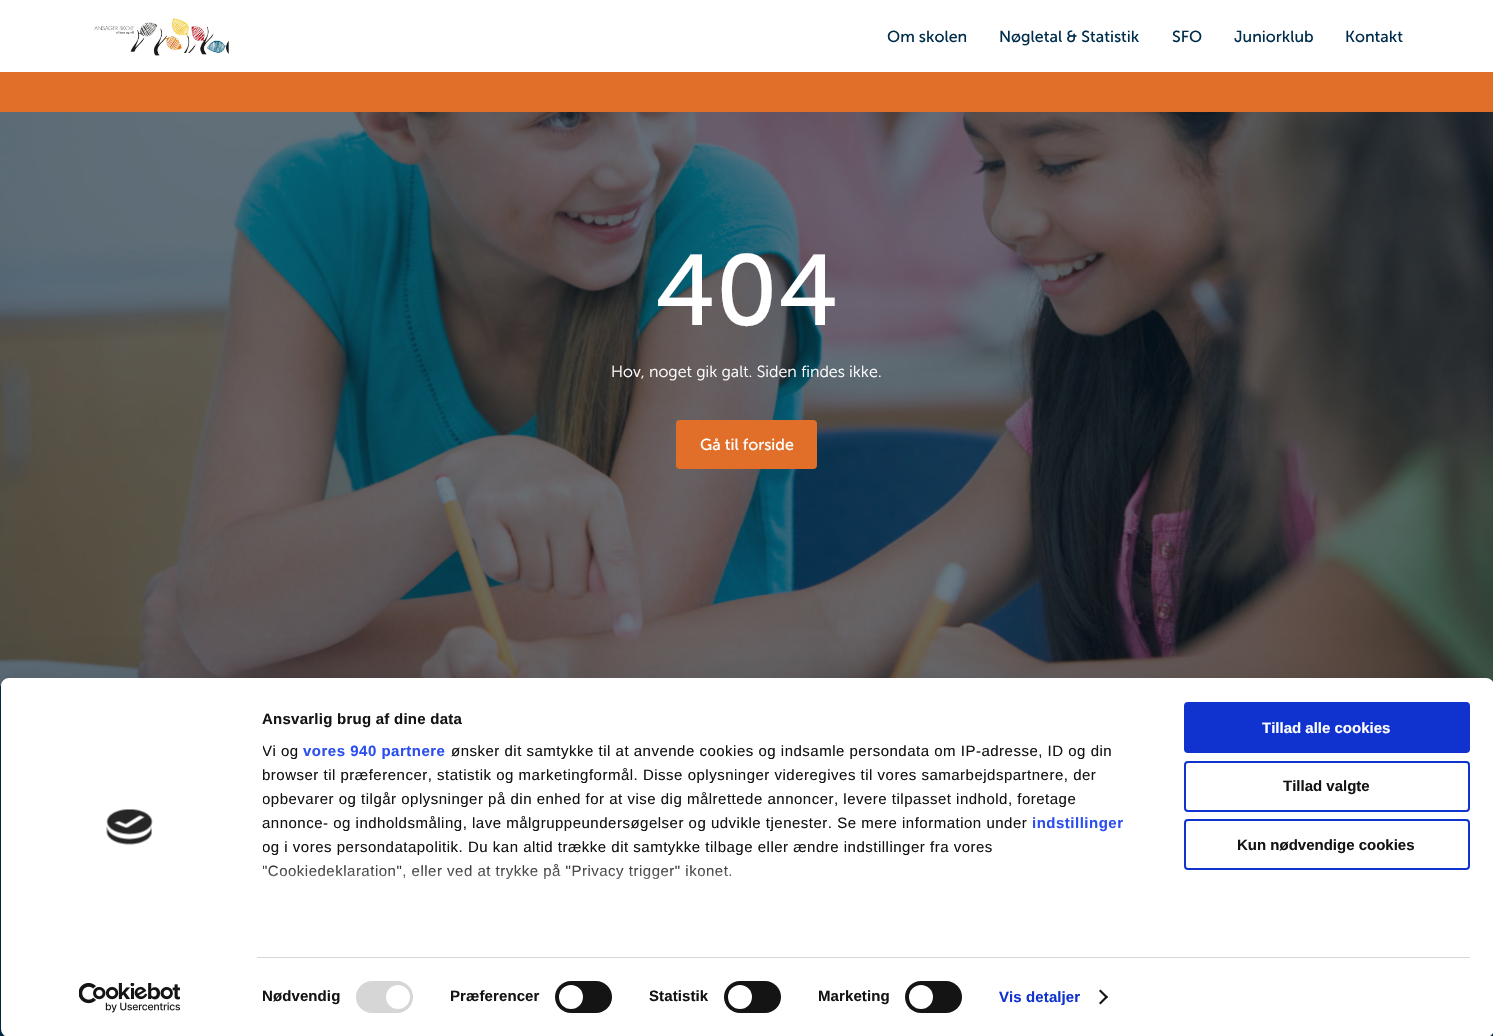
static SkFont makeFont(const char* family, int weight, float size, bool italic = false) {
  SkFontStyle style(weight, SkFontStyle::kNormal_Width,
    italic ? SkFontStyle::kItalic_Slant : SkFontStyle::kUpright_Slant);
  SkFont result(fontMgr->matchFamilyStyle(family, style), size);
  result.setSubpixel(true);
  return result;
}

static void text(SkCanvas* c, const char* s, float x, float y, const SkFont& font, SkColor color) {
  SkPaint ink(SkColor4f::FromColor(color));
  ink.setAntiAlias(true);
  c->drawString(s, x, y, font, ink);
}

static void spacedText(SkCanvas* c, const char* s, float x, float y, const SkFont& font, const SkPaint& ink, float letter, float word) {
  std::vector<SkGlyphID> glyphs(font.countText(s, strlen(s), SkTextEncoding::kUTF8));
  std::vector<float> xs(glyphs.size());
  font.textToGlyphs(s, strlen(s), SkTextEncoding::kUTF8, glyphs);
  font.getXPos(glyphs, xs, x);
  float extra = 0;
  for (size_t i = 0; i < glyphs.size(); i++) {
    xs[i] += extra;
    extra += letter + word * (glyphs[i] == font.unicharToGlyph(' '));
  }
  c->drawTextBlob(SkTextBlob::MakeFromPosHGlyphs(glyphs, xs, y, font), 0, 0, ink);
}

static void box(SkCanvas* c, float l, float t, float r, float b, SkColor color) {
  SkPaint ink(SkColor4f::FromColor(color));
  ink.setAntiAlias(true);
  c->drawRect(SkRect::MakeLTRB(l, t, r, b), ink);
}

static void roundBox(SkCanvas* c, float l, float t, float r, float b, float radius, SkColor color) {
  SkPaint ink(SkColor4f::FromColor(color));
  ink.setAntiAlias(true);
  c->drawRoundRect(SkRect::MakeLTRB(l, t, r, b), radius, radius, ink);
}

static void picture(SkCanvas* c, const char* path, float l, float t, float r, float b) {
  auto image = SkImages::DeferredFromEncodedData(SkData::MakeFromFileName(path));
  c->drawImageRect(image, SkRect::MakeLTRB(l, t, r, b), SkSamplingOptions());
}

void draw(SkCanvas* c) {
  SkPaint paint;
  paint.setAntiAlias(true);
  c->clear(0xff002d4b);
  box(c, 0, 0, 1493, 72, 0xffffffff);
  picture(c, "img_01.png", 94, 18, 229, 56);
  SkFont face1 = makeFont("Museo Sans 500", 400, 16);
  text(c, "Om skolen", 887, 42, face1, 0xff002d4b);
  text(c, "Nøgletal & Statistik", 999, 42, face1, 0xff002d4b);
  text(c, "SFO", 1172, 42, face1, 0xff002d4b);
  text(c, "Juniorklub", 1234, 42, face1, 0xff002d4b);
  text(c, "Kontakt", 1345, 42, face1, 0xff002d4b);
  box(c, 0, 72, 1493, 112, 0xffe16f2a);
  picture(c, "img_02.png", 0, 112, 1493, 686);
  SkFont face2 = makeFont("Museo Sans 500", 400, 100);
  text(c, "404", 655, 325, face2, 0xffffffff);
  SkFont face3 = makeFont("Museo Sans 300", 300, 16);
  text(c, "Hov, noget gik galt. Siden findes ikke.", 611, 377, face3, 0xffffffff);
  roundBox(c, 676, 420, 817, 469, 4, 0xffe16f2a);
  text(c, "Gå til forside", 700, 450, face1, 0xffffffff);
  paint.setColor(0x4d000000);
  paint.setMaskFilter(SkMaskFilter::MakeBlur(kNormal_SkBlurStyle, 35));
  c->drawRoundRect(SkRect::MakeLTRB(1, 708, 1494, 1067), 8, 8, paint);
  paint.setMaskFilter(nullptr);
  roundBox(c, 1, 678, 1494, 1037, 8, 0xffffffff);
  SkFont face4 = makeFont("Liberation Sans", 700, 15);
  paint.setColor(0xff141414);
  spacedText(c, "Ansvarlig brug af dine data", 262, 724, face4, paint, 0.25f, 0);
  c->save();
  c->clipRect(SkRect::MakeLTRB(263, 708, 1155, 929));
  SkFont face5 = makeFont("Liberation Sans", 400, 15);
  spacedText(c, "Vi og", 262, 756, face5, paint, 0.5f, 0);
  c->restore();
  paint.setColor(0xff2a4eef);
  spacedText(c, "vores 940 partnere", 303, 756, face4, paint, 0.5f, 0);
  paint.setColor(0xff141414);
  spacedText(c, "ønsker dit samtykke til at anvende cookies og indsamle persondata om IP-adresse, ID og din", 451, 756, face5, paint, 0.5f, 0);
  spacedText(c, "browser til præferencer, statistik og marketingformål. Disse oplysninger videregives til vores samarbejdspartnere, der", 262, 780, face5, paint, 0.5f, 0);
  c->save();
  c->clipRect(SkRect::MakeLTRB(263, 708, 1155, 929));
  spacedText(c, "opbevarer og tilgår oplysninger på din enhed for at vise dig målrettede annoncer, levere tilpasset indhold, foretage", 262, 804, face5, paint, 0.5f, 0);
  c->restore();
  spacedText(c, "annonce- og indholdsmåling, lave målgruppeundersøgelser og udvikle tjenester. Se mere information under", 262, 828, face5, paint, 0.5f, 0);
  paint.setColor(0xff2a4eef);
  spacedText(c, "indstillinger", 1032, 828, face4, paint, 0.5f, 0);
  c->save();
  c->clipRect(SkRect::MakeLTRB(263, 708, 1155, 929));
  paint.setColor(0xff141414);
  spacedText(c, "og i vores persondatapolitik. Du kan altid trække dit samtykke tilbage eller ændre indstillinger fra vores", 262, 852, face5, paint, 0.5f, 0);
  spacedText(c, "\"Cookiedeklaration\", eller ved at trykke på \"Privacy trigger\" ikonet.", 262, 876, face5, paint, 0.5f, 0);
  c->restore();
  {
    const SkColor colors[] = {0xffffffff, 0xccffffff, 0x00ffffff};
    const float stops[] = {0, 0.5f, 1};
    const SkPoint ends[] = {{699, 935}, {699, 860}};
    paint.setShader(SkGradientShader::MakeLinear(ends, colors, stops, 3, SkTileMode::kClamp));
    paint.setAlpha(255);
  }
  c->drawRect(SkRect::MakeLTRB(263, 864, 732, 880), paint);
  box(c, 257, 957, 1470, 958, 0xffd6d6d6);
  paint.setShader(nullptr);
  paint.setColor(0xff141414);
  spacedText(c, "Nødvendig", 262, 1001, face4, paint, 0.1f, 0);
  roundBox(c, 356, 981, 413, 1013, 16, 0xffd6d6d6);
  paint.setColor(0xffffffff);
  c->drawCircle(398, 997, 12, paint);
  paint.setColor(0xff141414);
  spacedText(c, "Præferencer", 450, 1001, face4, paint, 0.1f, 0);
  roundBox(c, 555, 981, 612, 1013, 16, 0xff141414);
  paint.setColor(0xffffffff);
  c->drawCircle(571, 997, 12, paint);
  paint.setColor(0xff141414);
  spacedText(c, "Statistik", 649, 1001, face4, paint, 0.1f, 0);
  roundBox(c, 724, 981, 781, 1013, 16, 0xff141414);
  paint.setColor(0xffffffff);
  c->drawCircle(740, 997, 12, paint);
  paint.setColor(0xff141414);
  spacedText(c, "Marketing", 818, 1001, face4, paint, 0.1f, 0);
  roundBox(c, 905, 981, 962, 1013, 16, 0xff141414);
  paint.setColor(0xffffffff);
  c->drawCircle(921, 997, 12, paint);
  paint.setColor(0xff1032cf);
  spacedText(c, "Vis detaljer", 999, 1002, face4, paint, 0.1f, 0);
  paint.setColor(0xff141414);
  c->drawPath(SkPathBuilder().moveTo(1100.5f, 989.5f).lineTo(1108, 997).lineTo(1106.5f, 998.5f).lineTo(1099, 991).close().detach(), paint);
  c->drawPath(SkPathBuilder().moveTo(1106.5f, 995.5f).lineTo(1108, 997).lineTo(1100.5f, 1004.5f).lineTo(1099, 1003).close().detach(), paint);
  paint.setColor(0xff1032cf);
  c->drawRoundRect(SkRect::MakeLTRB(1185, 703, 1469, 752), 3, 3, paint);
  paint.setStyle(SkPaint::kStroke_Style);
  paint.setStrokeWidth(2);
  c->drawRoundRect(SkRect::MakeLTRB(1185, 703, 1469, 752), 3, 3, paint);
  text(c, "Tillad alle cookies", 1262, 733, face4, 0xffffffff);
  c->drawRoundRect(SkRect::MakeLTRB(1185, 762, 1469, 811), 3, 3, paint);
  text(c, "Tillad valgte", 1283, 791, face4, 0xff141414);
  c->drawRoundRect(SkRect::MakeLTRB(1185, 820, 1469, 869), 3, 3, paint);
  text(c, "Kun nødvendige cookies", 1237, 850, face4, 0xff141414);
  picture(c, "img_03.png", 106, 809, 153, 845);
  picture(c, "img_04.png", 79, 983, 180, 1013);
}
